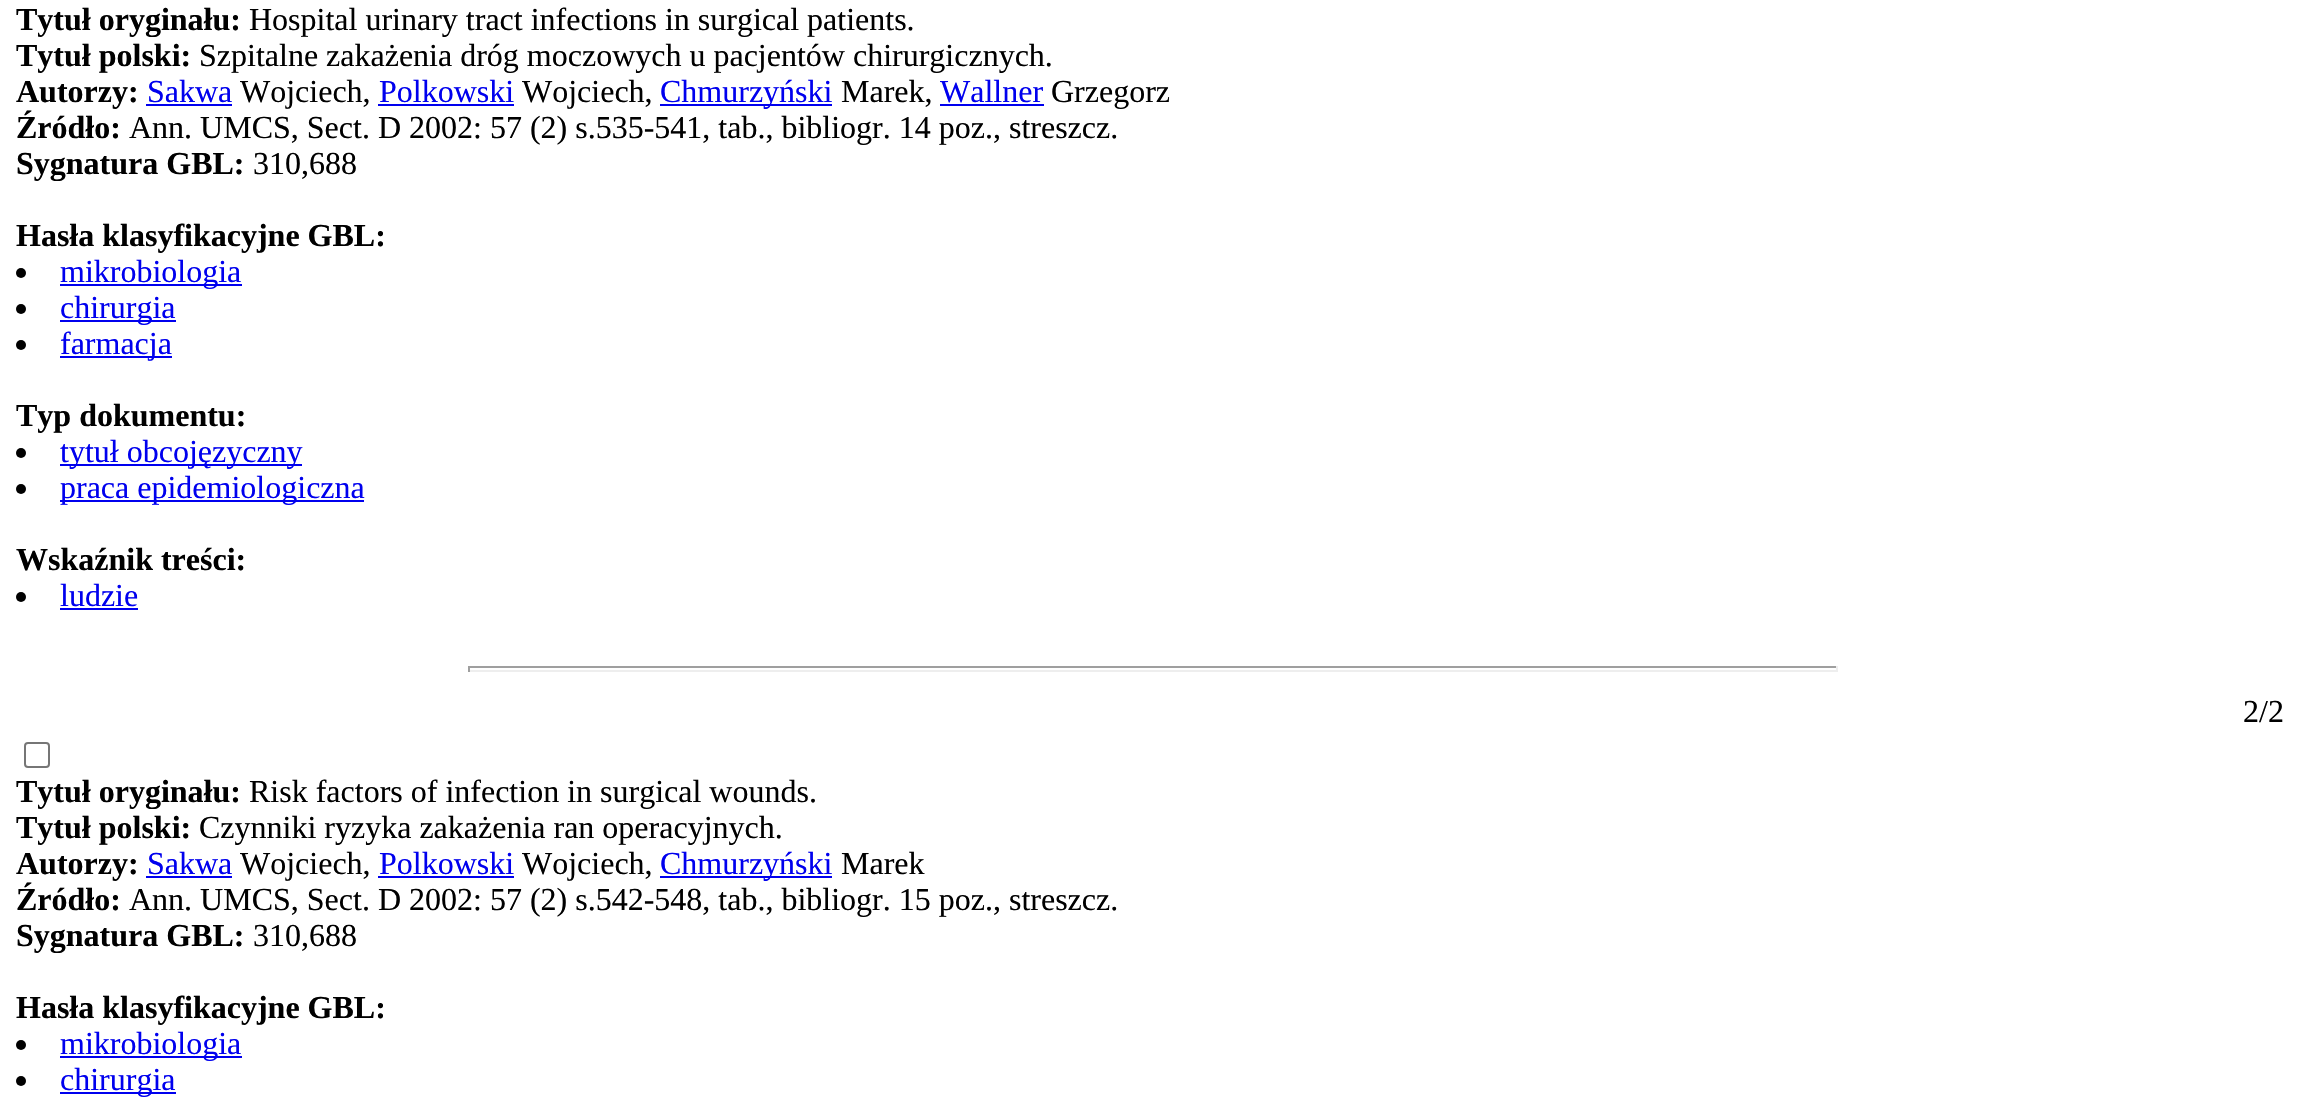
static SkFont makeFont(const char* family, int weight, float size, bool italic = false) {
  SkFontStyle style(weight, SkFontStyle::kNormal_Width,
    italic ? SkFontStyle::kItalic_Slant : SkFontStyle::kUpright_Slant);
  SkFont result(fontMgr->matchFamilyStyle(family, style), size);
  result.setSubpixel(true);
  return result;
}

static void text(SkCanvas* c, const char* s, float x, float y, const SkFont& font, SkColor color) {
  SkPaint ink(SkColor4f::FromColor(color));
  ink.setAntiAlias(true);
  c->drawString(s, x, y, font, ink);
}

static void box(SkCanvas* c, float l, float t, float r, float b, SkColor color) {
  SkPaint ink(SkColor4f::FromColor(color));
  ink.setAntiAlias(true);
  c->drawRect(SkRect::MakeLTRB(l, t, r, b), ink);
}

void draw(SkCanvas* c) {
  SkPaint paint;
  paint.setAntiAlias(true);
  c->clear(0xffffffff);
  SkFont face1 = makeFont("Liberation Serif", 700, 32);
  text(c, "Tytuł oryginału:", 16, 30, face1, 0xff000000);
  SkFont face2 = makeFont("Liberation Serif", 400, 32);
  text(c, "Hospital urinary tract infections in surgical patients.", 249, 30, face2, 0xff000000);
  text(c, "Tytuł polski:", 16, 66, face1, 0xff000000);
  text(c, "Szpitalne zakażenia dróg moczowych u pacjentów chirurgicznych.", 199, 66, face2, 0xff000000);
  text(c, "Autorzy:", 16, 102, face1, 0xff000000);
  text(c, "Sakwa", 147, 102, face2, 0xff0000ee);
  box(c, 146, 104, 232, 106, 0xff0000ee);
  text(c, "Wojciech,", 240, 102, face2, 0xff000000);
  text(c, "Polkowski", 379, 102, face2, 0xff0000ee);
  box(c, 378, 104, 514, 106, 0xff0000ee);
  text(c, "Wojciech,", 522, 102, face2, 0xff000000);
  box(c, 660, 104, 832, 106, 0xff0000ee);
  text(c, "Chmurzyński", 660, 102, face2, 0xff0000ee);
  text(c, "Marek,", 841, 102, face2, 0xff000000);
  text(c, "Wallner", 940, 102, face2, 0xff0000ee);
  box(c, 940, 104, 1044, 106, 0xff0000ee);
  text(c, "Grzegorz", 1051, 102, face2, 0xff000000);
  text(c, "Źródło:", 16, 138, face1, 0xff000000);
  text(c, "Ann. UMCS, Sect. D 2002: 57 (2) s.535-541, tab., bibliogr. 14 poz., streszcz.", 129, 138, face2, 0xff000000);
  text(c, "Sygnatura GBL:", 16, 174, face1, 0xff000000);
  text(c, "310,688", 253, 174, face2, 0xff000000);
  text(c, "Hasła klasyfikacyjne GBL:", 16, 246, face1, 0xff000000);
  paint.setColor(0xff000000);
  c->drawCircle(21, 273, 5, paint);
  box(c, 60, 284, 242, 286, 0xff0000ee);
  text(c, "mikrobiologia", 60, 282, face2, 0xff0000ee);
  c->drawCircle(21, 309, 5, paint);
  box(c, 60, 320, 176, 322, 0xff0000ee);
  text(c, "chirurgia", 60, 318, face2, 0xff0000ee);
  c->drawCircle(21, 345, 5, paint);
  box(c, 60, 356, 172, 358, 0xff0000ee);
  text(c, "farmacja", 60, 354, face2, 0xff0000ee);
  text(c, "Typ dokumentu:", 16, 426, face1, 0xff000000);
  c->drawCircle(21, 453, 5, paint);
  box(c, 60, 464, 302, 466, 0xff0000ee);
  text(c, "tytuł obcojęzyczny", 60, 462, face2, 0xff0000ee);
  c->drawCircle(21, 489, 5, paint);
  box(c, 60, 500, 364, 502, 0xff0000ee);
  text(c, "praca epidemiologiczna", 60, 498, face2, 0xff0000ee);
  text(c, "Wskaźnik treści:", 16, 570, face1, 0xff000000);
  c->drawCircle(21, 597, 5, paint);
  text(c, "ludzie", 60, 606, face2, 0xff0000ee);
  box(c, 60, 608, 138, 610, 0xff0000ee);
  box(c, 468, 666, 1838, 668, 0xff9f9f9f);
  box(c, 1836, 666, 1838, 672, 0xffeeeeee);
  box(c, 468, 670, 1838, 672, 0xffeeeeee);
  box(c, 468, 666, 470, 672, 0xff9f9f9f);
  text(c, "2/2", 2243, 722, face2, 0xff000000);
  paint.setStyle(SkPaint::kStroke_Style);
  paint.setStrokeWidth(2);
  paint.setColor(0xff767676);
  c->drawRoundRect(SkRect::MakeLTRB(25, 743, 49, 767), 3, 3, paint);
  text(c, "Tytuł oryginału:", 16, 802, face1, 0xff000000);
  text(c, "Risk factors of infection in surgical wounds.", 249, 802, face2, 0xff000000);
  text(c, "Tytuł polski:", 16, 838, face1, 0xff000000);
  text(c, "Czynniki ryzyka zakażenia ran operacyjnych.", 199, 838, face2, 0xff000000);
  text(c, "Autorzy:", 16, 874, face1, 0xff000000);
  text(c, "Sakwa", 147, 874, face2, 0xff0000ee);
  box(c, 146, 876, 232, 878, 0xff0000ee);
  text(c, "Wojciech,", 240, 874, face2, 0xff000000);
  text(c, "Polkowski", 379, 874, face2, 0xff0000ee);
  box(c, 378, 876, 514, 878, 0xff0000ee);
  text(c, "Wojciech,", 522, 874, face2, 0xff000000);
  box(c, 660, 876, 832, 878, 0xff0000ee);
  text(c, "Chmurzyński", 660, 874, face2, 0xff0000ee);
  text(c, "Marek", 841, 874, face2, 0xff000000);
  text(c, "Źródło:", 16, 910, face1, 0xff000000);
  text(c, "Ann. UMCS, Sect. D 2002: 57 (2) s.542-548, tab., bibliogr. 15 poz., streszcz.", 129, 910, face2, 0xff000000);
  text(c, "Sygnatura GBL:", 16, 946, face1, 0xff000000);
  text(c, "310,688", 253, 946, face2, 0xff000000);
  text(c, "Hasła klasyfikacyjne GBL:", 16, 1018, face1, 0xff000000);
  paint.setStyle(SkPaint::kFill_Style);
  paint.setColor(0xff000000);
  c->drawCircle(21, 1045, 5, paint);
  box(c, 60, 1056, 242, 1058, 0xff0000ee);
  text(c, "mikrobiologia", 60, 1054, face2, 0xff0000ee);
  c->drawCircle(21, 1081, 5, paint);
  box(c, 60, 1092, 176, 1094, 0xff0000ee);
  text(c, "chirurgia", 60, 1090, face2, 0xff0000ee);
}
